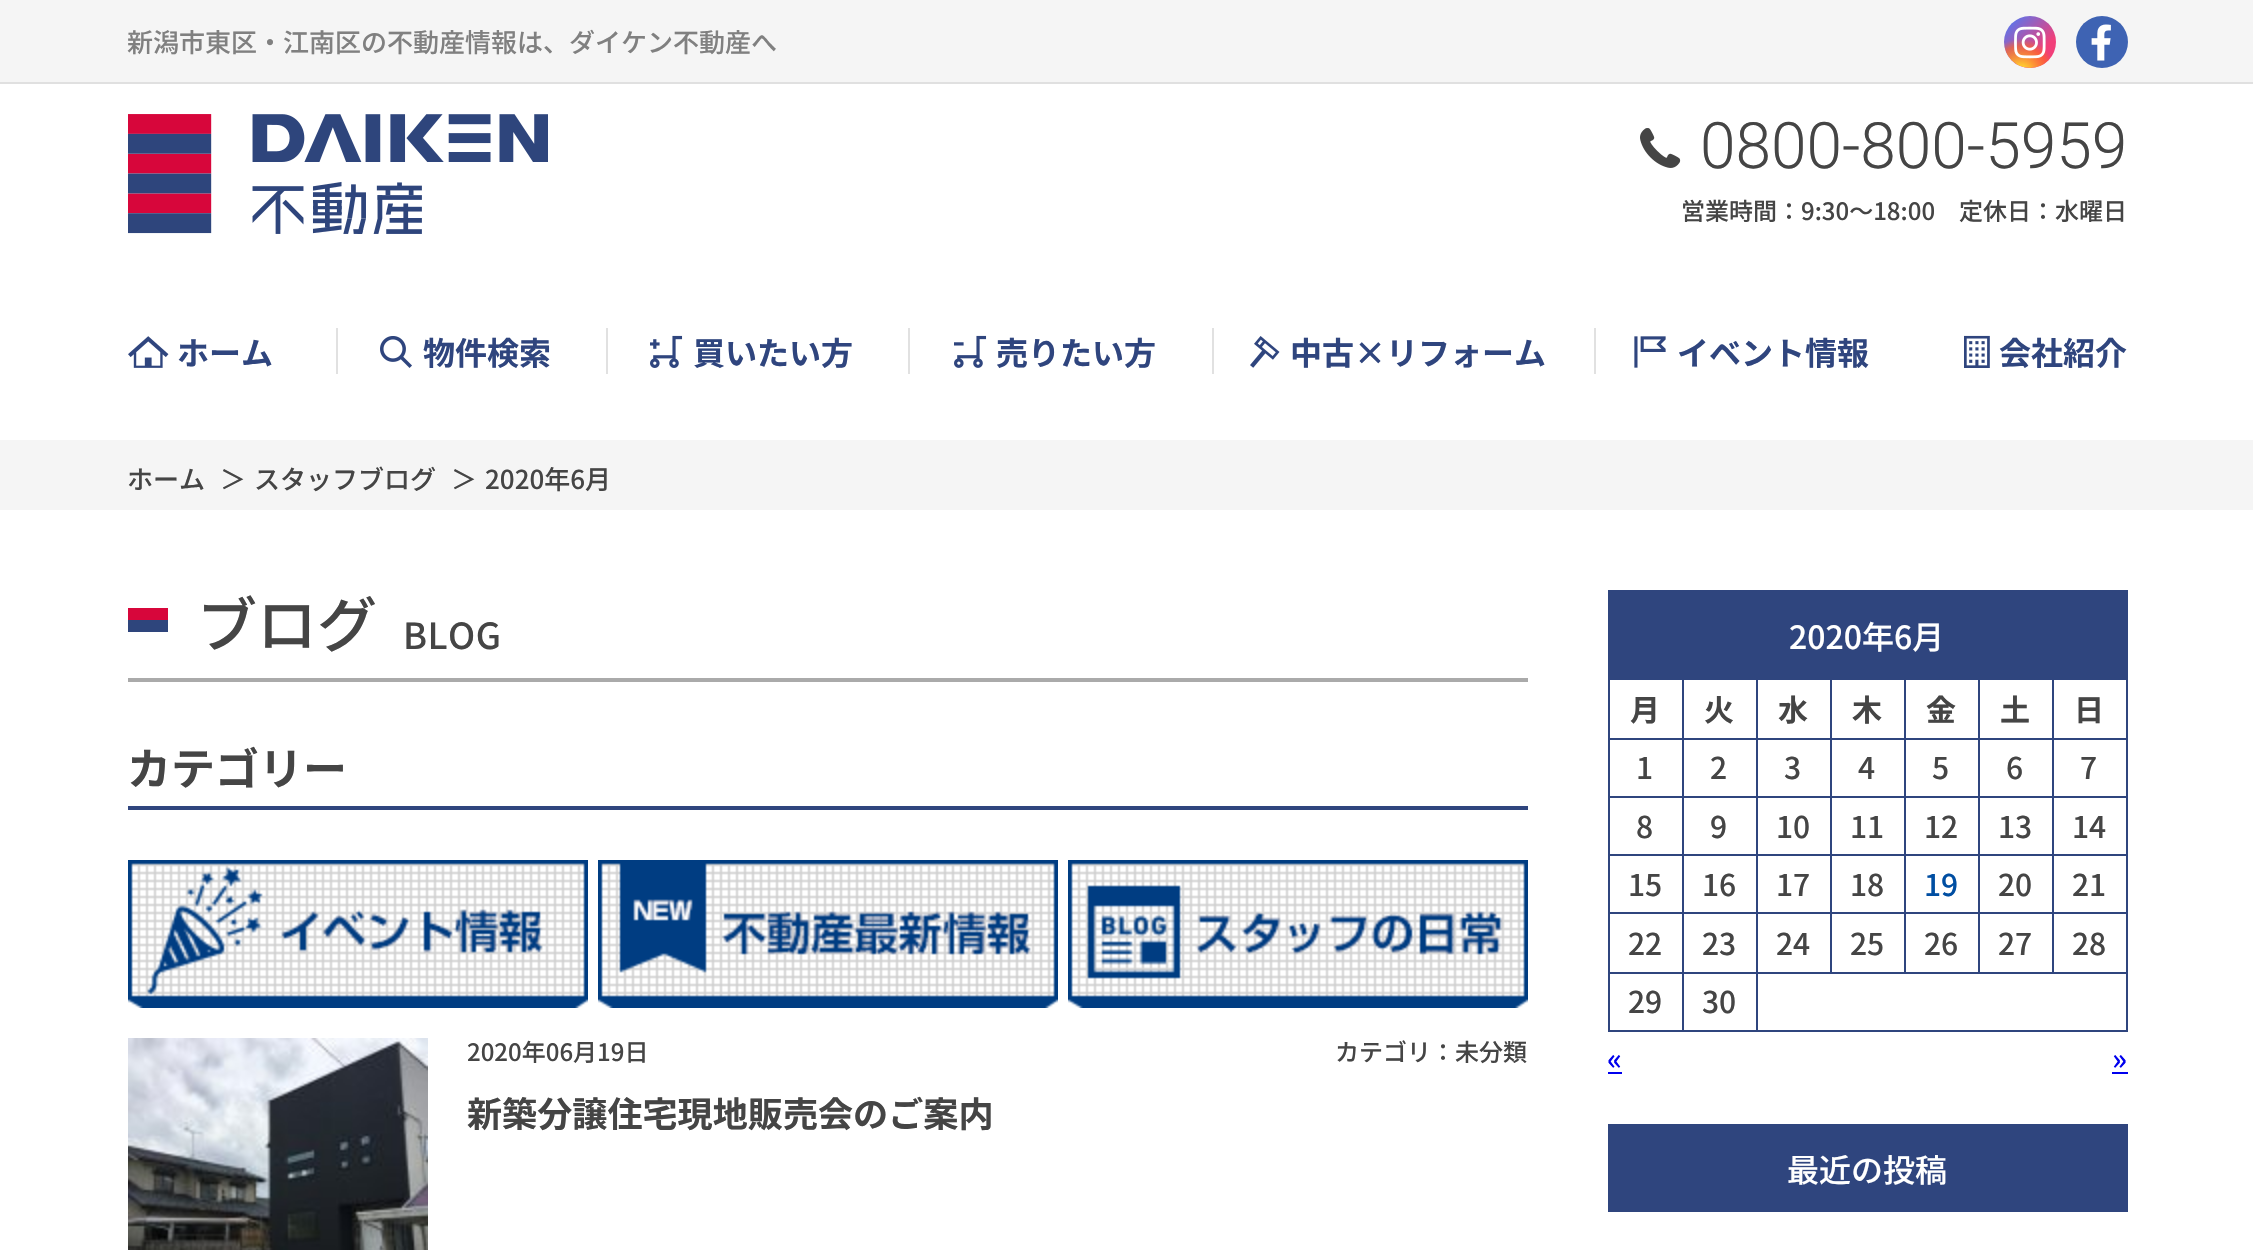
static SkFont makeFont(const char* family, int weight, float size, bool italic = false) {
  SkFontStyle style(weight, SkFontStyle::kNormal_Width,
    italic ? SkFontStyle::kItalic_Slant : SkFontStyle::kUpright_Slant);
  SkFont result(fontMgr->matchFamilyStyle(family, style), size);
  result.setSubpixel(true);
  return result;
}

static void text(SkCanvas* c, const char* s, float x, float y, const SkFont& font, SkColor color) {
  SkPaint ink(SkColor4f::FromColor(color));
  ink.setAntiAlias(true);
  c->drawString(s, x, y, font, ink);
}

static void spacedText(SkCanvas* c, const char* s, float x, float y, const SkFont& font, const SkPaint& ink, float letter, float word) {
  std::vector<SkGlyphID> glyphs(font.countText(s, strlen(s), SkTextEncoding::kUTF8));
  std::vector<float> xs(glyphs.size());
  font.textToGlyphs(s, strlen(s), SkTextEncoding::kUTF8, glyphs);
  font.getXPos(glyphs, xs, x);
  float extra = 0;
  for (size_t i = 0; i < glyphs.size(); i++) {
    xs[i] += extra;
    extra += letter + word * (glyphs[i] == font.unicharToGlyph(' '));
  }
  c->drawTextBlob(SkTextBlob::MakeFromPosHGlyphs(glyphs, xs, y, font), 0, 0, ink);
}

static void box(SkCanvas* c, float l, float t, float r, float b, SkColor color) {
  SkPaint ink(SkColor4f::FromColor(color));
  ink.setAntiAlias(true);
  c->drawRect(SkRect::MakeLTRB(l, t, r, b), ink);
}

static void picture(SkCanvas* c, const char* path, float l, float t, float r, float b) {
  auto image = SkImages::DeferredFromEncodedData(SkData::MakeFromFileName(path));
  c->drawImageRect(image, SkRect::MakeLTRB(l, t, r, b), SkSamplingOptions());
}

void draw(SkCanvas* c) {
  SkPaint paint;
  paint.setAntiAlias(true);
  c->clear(0xffffffff);
  box(c, 0, 0, 2253, 82, 0xfff5f5f5);
  box(c, 0, 82, 2253, 84, 0xffe0e0e0);
  SkFont face1 = makeFont("Noto Sans JP", 500, 26);
  text(c, "新潟市東区・江南区の不動産情報は、ダイケン不動産へ", 127, 52, face1, 0xff808080);
  {
    const SkColor colors[] = {0xff427eff, 0xfff13f79};
    const float stops[] = {0, 0.7f};
    const SkPoint ends[] = {{2004, 16}, {2056, 68}};
    paint.setShader(SkGradientShader::MakeLinear(ends, colors, stops, 2, SkTileMode::kClamp));
    paint.setAlpha(255);
  }
  c->drawCircle(2030, 42, 26, paint);
  c->save();
  c->clipPath(SkPathBuilder().moveTo(2030, 16).cubicTo(2044.5f, 16, 2056, 27.5f, 2056, 42).cubicTo(2056, 56.5f, 2044.5f, 68, 2030, 68).cubicTo(2015.5f, 68, 2004, 56.5f, 2004, 42).cubicTo(2004, 27.5f, 2015.5f, 16, 2030, 16).close().detach(), true);
  {
    const SkColor colors[] = {0xffffdb2c, 0xa6ff6922, 0x00ff6922};
    const float stops[] = {0.1f, 0.55f, 0.7f};
    paint.setShader(SkGradientShader::MakeRadial({2021, 73}, 49, colors, stops, 3, SkTileMode::kClamp));
    paint.setAlpha(255);
  }
  c->drawPath(SkPathBuilder().moveTo(2004, 38).lineTo(2056, 38).lineTo(2056, 42).cubicTo(2056, 56.5f, 2044.5f, 68, 2030, 68).cubicTo(2015.5f, 68, 2004, 56.5f, 2004, 42).close().detach(), paint);
  c->restore();
  picture(c, "img_01.png", 2014, 26, 2046, 59);
  paint.setShader(nullptr);
  paint.setColor(0xff3e63b3);
  c->drawCircle(2102, 42, 26, paint);
  picture(c, "img_02.png", 2091, 24, 2111, 61);
  picture(c, "img_03.png", 128, 114, 548, 234);
  picture(c, "img_04.png", 1640, 128, 1681, 168);
  SkFont face2 = makeFont("Roboto", 300, 64);
  text(c, "0800-800-5959", 1700, 168, face2, 0xff454545);
  SkFont face3 = makeFont("Noto Sans JP", 500, 24);
  text(c, "営業時間：9:30〜18:00　定休日：水曜日", 1681, 220, face3, 0xff454545);
  picture(c, "img_05.png", 128, 336, 169, 368);
  SkFont face4 = makeFont("Noto Sans JP", 700, 32);
  text(c, "ホーム", 177, 365, face4, 0xff2f457e);
  box(c, 336, 328, 338, 374, 0xffe1e1e1);
  picture(c, "img_06.png", 380, 336, 412, 368);
  text(c, "物件検索", 423, 365, face4, 0xff2f457e);
  box(c, 606, 328, 608, 374, 0xffe1e1e1);
  picture(c, "img_07.png", 650, 335, 683, 368);
  text(c, "買いたい方", 693, 365, face4, 0xff2f457e);
  box(c, 908, 328, 910, 374, 0xffe1e1e1);
  picture(c, "img_08.png", 954, 335, 987, 368);
  text(c, "売りたい方", 996, 365, face4, 0xff2f457e);
  box(c, 1212, 328, 1214, 374, 0xffe1e1e1);
  picture(c, "img_09.png", 1250, 336, 1280, 368);
  text(c, "中古×リフォーム", 1290, 365, face4, 0xff2f457e);
  box(c, 1594, 328, 1596, 374, 0xffe1e1e1);
  picture(c, "img_10.png", 1634, 336, 1666, 368);
  text(c, "イベント情報", 1677, 365, face4, 0xff2f457e);
  picture(c, "img_11.png", 1964, 335, 1990, 368);
  text(c, "会社紹介", 1999, 365, face4, 0xff2f457e);
  box(c, 0, 440, 2253, 510, 0xfff5f5f5);
  text(c, "ホーム", 127, 489, face1, 0xff454545);
  text(c, "＞", 220, 489, face1, 0xff454545);
  text(c, "スタッフブログ", 254, 489, face1, 0xff454545);
  text(c, "＞", 451, 489, face1, 0xff454545);
  text(c, "2020年6月", 485, 489, face1, 0xff454545);
  box(c, 128, 678, 1528, 682, 0xffaaaaaa);
  box(c, 128, 620, 168, 632, 0xff2e457c);
  box(c, 128, 608, 168, 620, 0xffd7063b);
  SkFont face5 = makeFont("Noto Sans JP", 500, 60);
  text(c, "ブログ", 197, 647, face5, 0xff454545);
  SkFont face6 = makeFont("Noto Sans JP", 500, 36);
  paint.setColor(0xff454545);
  spacedText(c, "BLOG", 403, 649, face6, paint, 0.5f, 0);
  box(c, 128, 806, 1528, 810, 0xff2f457e);
  SkFont face7 = makeFont("Noto Sans JP", 700, 44);
  text(c, "カテゴリー", 127, 785, face7, 0xff454545);
  picture(c, "img_12.png", 128, 860, 588, 1008);
  picture(c, "img_13.png", 598, 860, 1058, 1008);
  picture(c, "img_14.png", 1068, 860, 1528, 1008);
  picture(c, "img_15.png", 128, 1038, 428, 1250);
  text(c, "2020年06月19日", 467, 1061, face3, 0xff454545);
  text(c, "カテゴリ：未分類", 1335, 1061, face3, 0xff454545);
  SkFont face8 = makeFont("Noto Sans JP", 700, 35.1f);
  text(c, "新築分譲住宅現地販売会のご案内", 467, 1127, face8, 0xff454545);
  box(c, 1608, 590, 2128, 678, 0xff2f457e);
  SkFont face9 = makeFont("Noto Sans JP", 500, 32);
  text(c, "2020年6月", 1789, 649, face9, 0xffffffff);
  box(c, 2052, 678, 2128, 680, 0xff2f457e);
  box(c, 2052, 738, 2128, 740, 0xff2f457e);
  box(c, 2052, 796, 2128, 798, 0xff2f457e);
  box(c, 2052, 854, 2128, 856, 0xff2f457e);
  box(c, 2052, 912, 2128, 914, 0xff2f457e);
  box(c, 1756, 972, 2128, 974, 0xff2f457e);
  box(c, 2052, 912, 2054, 974, 0xff2f457e);
  box(c, 1978, 912, 2054, 914, 0xff2f457e);
  box(c, 2052, 854, 2054, 914, 0xff2f457e);
  box(c, 1978, 854, 2054, 856, 0xff2f457e);
  box(c, 2052, 796, 2054, 856, 0xff2f457e);
  box(c, 1978, 796, 2054, 798, 0xff2f457e);
  box(c, 2052, 738, 2054, 798, 0xff2f457e);
  box(c, 1978, 738, 2054, 740, 0xff2f457e);
  box(c, 2052, 678, 2054, 740, 0xff2f457e);
  box(c, 1978, 678, 2054, 680, 0xff2f457e);
  box(c, 1978, 912, 1980, 974, 0xff2f457e);
  box(c, 1904, 912, 1980, 914, 0xff2f457e);
  box(c, 1978, 854, 1980, 914, 0xff2f457e);
  box(c, 1904, 854, 1980, 856, 0xff2f457e);
  box(c, 1978, 796, 1980, 856, 0xff2f457e);
  box(c, 1904, 796, 1980, 798, 0xff2f457e);
  box(c, 1978, 738, 1980, 798, 0xff2f457e);
  box(c, 1904, 738, 1980, 740, 0xff2f457e);
  box(c, 1978, 678, 1980, 740, 0xff2f457e);
  box(c, 1904, 678, 1980, 680, 0xff2f457e);
  box(c, 1904, 912, 1906, 974, 0xff2f457e);
  box(c, 1830, 912, 1906, 914, 0xff2f457e);
  box(c, 1904, 854, 1906, 914, 0xff2f457e);
  box(c, 1830, 854, 1906, 856, 0xff2f457e);
  box(c, 1904, 796, 1906, 856, 0xff2f457e);
  box(c, 1830, 796, 1906, 798, 0xff2f457e);
  box(c, 1904, 738, 1906, 798, 0xff2f457e);
  box(c, 1830, 738, 1906, 740, 0xff2f457e);
  box(c, 1904, 678, 1906, 740, 0xff2f457e);
  box(c, 1830, 678, 1906, 680, 0xff2f457e);
  box(c, 1830, 912, 1832, 974, 0xff2f457e);
  box(c, 1756, 912, 1832, 914, 0xff2f457e);
  box(c, 1830, 854, 1832, 914, 0xff2f457e);
  box(c, 1756, 854, 1832, 856, 0xff2f457e);
  box(c, 1830, 796, 1832, 856, 0xff2f457e);
  box(c, 1756, 796, 1832, 798, 0xff2f457e);
  box(c, 1830, 738, 1832, 798, 0xff2f457e);
  box(c, 1756, 738, 1832, 740, 0xff2f457e);
  box(c, 1830, 678, 1832, 740, 0xff2f457e);
  box(c, 1756, 678, 1832, 680, 0xff2f457e);
  box(c, 2126, 972, 2128, 1032, 0xff2f457e);
  box(c, 1756, 1030, 2128, 1032, 0xff2f457e);
  box(c, 1756, 972, 1758, 1032, 0xff2f457e);
  box(c, 1682, 972, 1758, 974, 0xff2f457e);
  box(c, 1756, 912, 1758, 974, 0xff2f457e);
  box(c, 1682, 912, 1758, 914, 0xff2f457e);
  box(c, 1756, 854, 1758, 914, 0xff2f457e);
  box(c, 1682, 854, 1758, 856, 0xff2f457e);
  box(c, 1756, 796, 1758, 856, 0xff2f457e);
  box(c, 1682, 796, 1758, 798, 0xff2f457e);
  box(c, 1756, 738, 1758, 798, 0xff2f457e);
  box(c, 1682, 738, 1758, 740, 0xff2f457e);
  box(c, 1756, 678, 1758, 740, 0xff2f457e);
  box(c, 1682, 678, 1758, 680, 0xff2f457e);
  box(c, 1682, 1030, 1758, 1032, 0xff2f457e);
  box(c, 1682, 972, 1684, 1032, 0xff2f457e);
  box(c, 1608, 972, 1684, 974, 0xff2f457e);
  box(c, 1682, 912, 1684, 974, 0xff2f457e);
  box(c, 1608, 912, 1684, 914, 0xff2f457e);
  box(c, 1682, 854, 1684, 914, 0xff2f457e);
  box(c, 1608, 854, 1684, 856, 0xff2f457e);
  box(c, 1682, 796, 1684, 856, 0xff2f457e);
  box(c, 1608, 796, 1684, 798, 0xff2f457e);
  box(c, 1682, 738, 1684, 798, 0xff2f457e);
  box(c, 1608, 738, 1684, 740, 0xff2f457e);
  box(c, 1682, 678, 1684, 740, 0xff2f457e);
  box(c, 1608, 678, 1684, 680, 0xff2f457e);
  box(c, 1608, 1030, 1684, 1032, 0xff2f457e);
  box(c, 1608, 972, 1610, 1032, 0xff2f457e);
  box(c, 1608, 912, 1610, 974, 0xff2f457e);
  box(c, 1608, 854, 1610, 914, 0xff2f457e);
  box(c, 1608, 796, 1610, 856, 0xff2f457e);
  box(c, 1608, 738, 1610, 798, 0xff2f457e);
  box(c, 1608, 678, 1610, 740, 0xff2f457e);
  SkFont face10 = makeFont("Noto Sans JP", 700, 30);
  text(c, "月", 1630, 721, face10, 0xff454545);
  text(c, "火", 1704, 721, face10, 0xff454545);
  text(c, "水", 1778, 721, face10, 0xff454545);
  text(c, "木", 1852, 721, face10, 0xff454545);
  text(c, "金", 1926, 721, face10, 0xff454545);
  text(c, "土", 2000, 721, face10, 0xff454545);
  box(c, 2126, 912, 2128, 974, 0xff2f457e);
  box(c, 2126, 854, 2128, 914, 0xff2f457e);
  box(c, 2126, 796, 2128, 856, 0xff2f457e);
  box(c, 2126, 738, 2128, 798, 0xff2f457e);
  box(c, 2126, 678, 2128, 740, 0xff2f457e);
  text(c, "日", 2074, 721, face10, 0xff454545);
  SkFont face11 = makeFont("Noto Sans JP", 500, 30);
  text(c, "1", 1636, 779, face11, 0xff454545);
  text(c, "2", 1710, 779, face11, 0xff454545);
  text(c, "3", 1784, 779, face11, 0xff454545);
  text(c, "4", 1858, 779, face11, 0xff454545);
  text(c, "5", 1932, 779, face11, 0xff454545);
  text(c, "6", 2006, 779, face11, 0xff454545);
  text(c, "7", 2080, 779, face11, 0xff454545);
  text(c, "8", 1636, 838, face11, 0xff454545);
  text(c, "9", 1710, 838, face11, 0xff454545);
  text(c, "10", 1776, 838, face11, 0xff454545);
  text(c, "11", 1850, 838, face11, 0xff454545);
  text(c, "12", 1924, 838, face11, 0xff454545);
  text(c, "13", 1998, 838, face11, 0xff454545);
  text(c, "14", 2072, 838, face11, 0xff454545);
  text(c, "15", 1628, 896, face11, 0xff454545);
  text(c, "16", 1702, 896, face11, 0xff454545);
  text(c, "17", 1776, 896, face11, 0xff454545);
  text(c, "18", 1850, 896, face11, 0xff454545);
  text(c, "19", 1924, 896, face11, 0xff004ea2);
  text(c, "20", 1998, 896, face11, 0xff454545);
  text(c, "21", 2072, 896, face11, 0xff454545);
  text(c, "22", 1628, 955, face11, 0xff454545);
  text(c, "23", 1702, 955, face11, 0xff454545);
  text(c, "24", 1776, 955, face11, 0xff454545);
  text(c, "25", 1850, 955, face11, 0xff454545);
  text(c, "26", 1924, 955, face11, 0xff454545);
  text(c, "27", 1998, 955, face11, 0xff454545);
  text(c, "28", 2072, 955, face11, 0xff454545);
  text(c, "29", 1628, 1013, face11, 0xff454545);
  text(c, "30", 1702, 1013, face11, 0xff454545);
  text(c, "«", 1607, 1070, face11, 0xff0000ee);
  box(c, 1608, 1072, 1622, 1074, 0xff0000ee);
  text(c, "»", 2112, 1070, face11, 0xff0000ee);
  box(c, 2112, 1072, 2128, 1074, 0xff0000ee);
  box(c, 1608, 1124, 2128, 1212, 0xff2f457e);
  text(c, "最近の投稿", 1787, 1182, face9, 0xffffffff);
}
